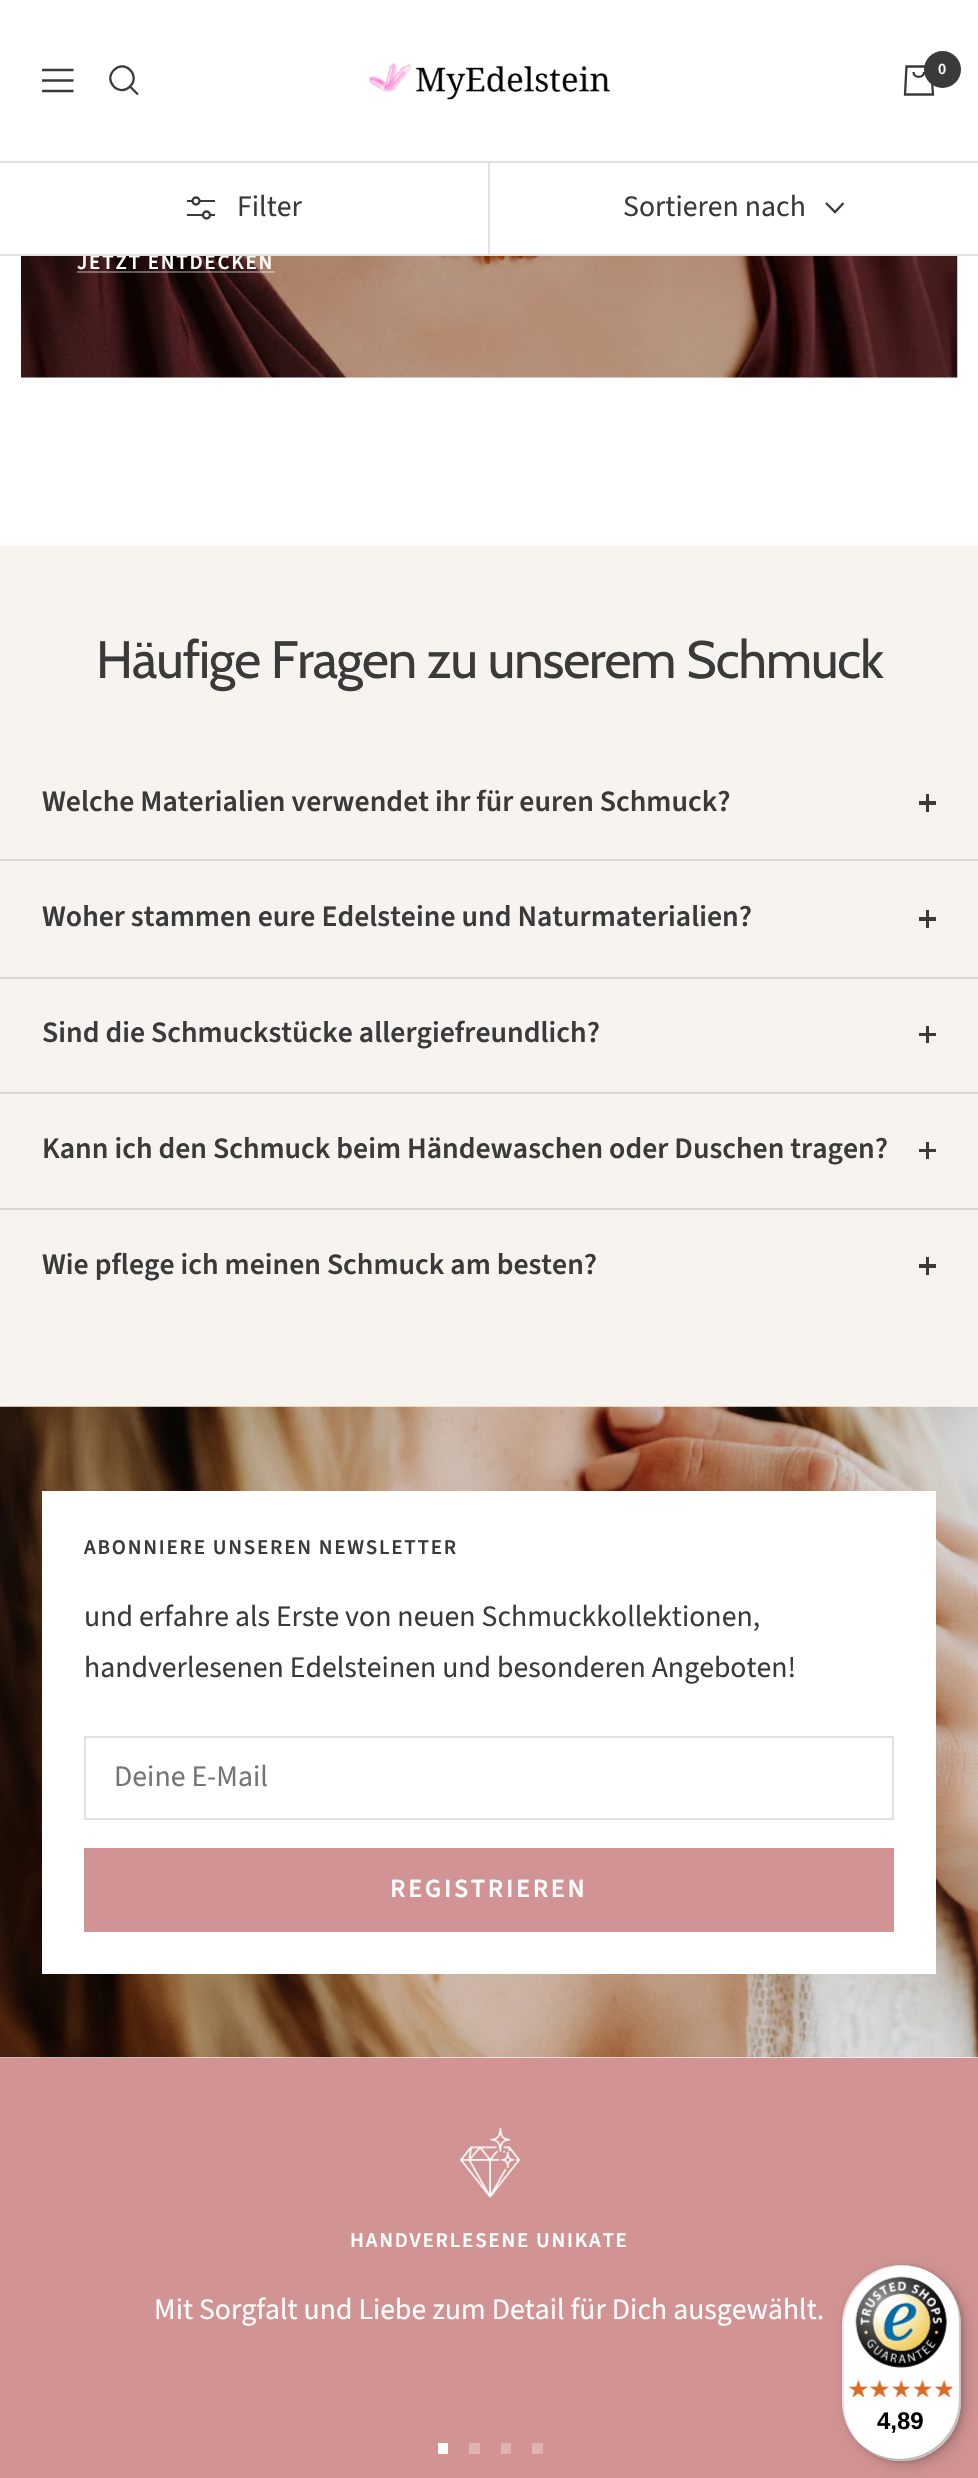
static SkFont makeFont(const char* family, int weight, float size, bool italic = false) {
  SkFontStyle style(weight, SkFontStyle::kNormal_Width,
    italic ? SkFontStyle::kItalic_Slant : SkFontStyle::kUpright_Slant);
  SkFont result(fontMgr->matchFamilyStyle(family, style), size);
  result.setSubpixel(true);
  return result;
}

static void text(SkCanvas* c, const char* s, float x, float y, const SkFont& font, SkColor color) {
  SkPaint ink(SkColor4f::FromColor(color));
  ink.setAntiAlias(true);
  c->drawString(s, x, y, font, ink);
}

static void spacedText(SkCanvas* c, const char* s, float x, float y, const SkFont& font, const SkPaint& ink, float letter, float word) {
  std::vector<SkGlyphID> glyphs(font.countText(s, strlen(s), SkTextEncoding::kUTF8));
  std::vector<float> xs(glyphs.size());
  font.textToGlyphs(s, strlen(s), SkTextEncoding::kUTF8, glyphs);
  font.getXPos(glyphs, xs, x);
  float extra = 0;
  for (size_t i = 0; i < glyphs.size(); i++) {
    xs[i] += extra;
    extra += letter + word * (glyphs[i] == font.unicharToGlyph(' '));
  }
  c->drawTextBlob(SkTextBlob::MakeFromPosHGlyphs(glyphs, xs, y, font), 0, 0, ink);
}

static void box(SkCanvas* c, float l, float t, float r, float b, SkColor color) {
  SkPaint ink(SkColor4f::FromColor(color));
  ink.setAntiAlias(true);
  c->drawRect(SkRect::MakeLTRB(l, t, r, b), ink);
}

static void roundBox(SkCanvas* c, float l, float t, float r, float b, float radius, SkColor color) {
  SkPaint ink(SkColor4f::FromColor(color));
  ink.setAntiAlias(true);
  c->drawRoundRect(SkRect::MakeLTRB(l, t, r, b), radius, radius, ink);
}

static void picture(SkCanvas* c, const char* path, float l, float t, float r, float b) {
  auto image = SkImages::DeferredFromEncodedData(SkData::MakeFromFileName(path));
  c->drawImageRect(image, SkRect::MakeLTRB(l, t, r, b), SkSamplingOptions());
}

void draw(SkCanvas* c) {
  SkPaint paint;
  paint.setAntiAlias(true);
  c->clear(0xffffffff);
  paint.setStyle(SkPaint::kStroke_Style);
  paint.setStrokeWidth(2.3f);
  paint.setColor(0xff3a3a3a);
  c->drawPath(SkPathBuilder().moveTo(42, 70).lineTo(73.5f, 70).moveTo(42, 91).lineTo(73.5f, 91).close().moveTo(42, 80.5f).lineTo(73.5f, 80.5f).close().detach(), paint);
  c->drawPath(SkPathBuilder().moveTo(130, 86.5f).cubicTo(141, 75.5f, 125, 59, 114, 70).cubicTo(103, 81, 119, 97.5f, 130, 86.5f).close().moveTo(130, 86.5f).lineTo(138, 94.5f).detach(), paint);
  picture(c, "img_01.png", 369, 63, 610, 100);
  c->drawPath(SkPathBuilder().moveTo(906.5f, 66.5f).lineTo(931, 66.5f).lineTo(933, 94.5f).lineTo(905, 94.5f).close().moveTo(913.5f, 72).cubicTo(913.5f, 78.5f, 924, 78.5f, 924, 72).detach(), paint);
  paint.setStyle(SkPaint::kFill_Style);
  c->drawCircle(942.5f, 69.5f, 18.5f, paint);
  SkFont face1 = makeFont("Source Sans Pro", 600, 16);
  text(c, "0", 938, 74, face1, 0xffffffff);
  box(c, 0, 161, 978, 163, 0xffe1e1e1);
  box(c, 21, 377, 957, 378, 0xfff7f8fd);
  picture(c, "img_02.png", 21, 256, 958, 378);
  SkFont face2 = makeFont("Source Sans Pro", 600, 21);
  paint.setColor(0xffffffff);
  spacedText(c, "JETZT ENTDECKEN", 77, 269, face2, paint, 1.75f, 0);
  box(c, 0, 254, 978, 256, 0xffe1e1e1);
  paint.setStyle(SkPaint::kStroke_Style);
  paint.setStrokeWidth(1.8f);
  paint.setColor(0xff3a3a3a);
  c->drawPath(SkPathBuilder().moveTo(187, 201).lineTo(215, 201).moveTo(187, 215).lineTo(215, 215).detach(), paint);
  paint.setStyle(SkPaint::kFill_Style);
  paint.setColor(0xffffffff);
  c->drawCircle(196, 201, 3.5f, paint);
  paint.setStyle(SkPaint::kStroke_Style);
  paint.setStrokeWidth(2.3f);
  paint.setColor(0xff3a3a3a);
  c->drawCircle(196, 201, 3.5f, paint);
  paint.setStyle(SkPaint::kFill_Style);
  paint.setColor(0xffffffff);
  c->drawCircle(206.5f, 215, 3.5f, paint);
  paint.setStyle(SkPaint::kStroke_Style);
  paint.setColor(0xff3a3a3a);
  c->drawCircle(206.5f, 215, 3.5f, paint);
  SkFont face3 = makeFont("Source Sans Pro", 400, 29.75f);
  text(c, "Filter", 237, 216, face3, 0xff3a3a3a);
  box(c, 488, 161, 490, 256, 0xffe1e1e1);
  text(c, "Sortieren nach", 623, 216, face3, 0xff3a3a3a);
  c->drawPath(SkPathBuilder().moveTo(826, 203).lineTo(835, 212).lineTo(843.5f, 203).detach(), paint);
  box(c, 77, 271, 275, 273, 0x59ffffff);
  box(c, 0, 546, 978, 1407, 0xfff7f3ee);
  SkFont face4 = makeFont("Cabin", 400, 52.5f);
  paint.setStyle(SkPaint::kFill_Style);
  spacedText(c, "Häufige Fragen zu unserem Schmuck", 96, 678, face4, paint, -1.05f, 0);
  SkFont face5 = makeFont("Source Sans Pro", 600, 29.75f);
  text(c, "Welche Materialien verwendet ihr für euren Schmuck?", 42, 811, face5, 0xff3a3a3a);
  box(c, 926, 794, 929, 812, 0xff3a3a3a);
  box(c, 919, 801, 936, 805, 0xff3a3a3a);
  box(c, 0, 859, 978, 861, 0xffdbd7d3);
  text(c, "Woher stammen eure Edelsteine und Naturmaterialien?", 42, 926, face5, 0xff3a3a3a);
  box(c, 926, 910, 929, 928, 0xff3a3a3a);
  box(c, 919, 917, 936, 921, 0xff3a3a3a);
  box(c, 0, 977, 978, 979, 0xffdbd7d3);
  text(c, "Sind die Schmuckstücke allergiefreundlich?", 42, 1042, face5, 0xff3a3a3a);
  box(c, 926, 1026, 929, 1043, 0xff3a3a3a);
  box(c, 919, 1033, 936, 1036, 0xff3a3a3a);
  box(c, 0, 1092, 978, 1094, 0xffdbd7d3);
  text(c, "Kann ich den Schmuck beim Händewaschen oder Duschen tragen?", 42, 1158, face5, 0xff3a3a3a);
  box(c, 926, 1142, 929, 1159, 0xff3a3a3a);
  box(c, 919, 1149, 936, 1152, 0xff3a3a3a);
  box(c, 0, 1208, 978, 1210, 0xffdbd7d3);
  text(c, "Wie pflege ich meinen Schmuck am besten?", 42, 1274, face5, 0xff3a3a3a);
  box(c, 926, 1257, 929, 1275, 0xff3a3a3a);
  box(c, 919, 1264, 936, 1268, 0xff3a3a3a);
  box(c, 0, 2057, 978, 2058, 0xfff7f3ee);
  picture(c, "img_03.png", 0, 1406, 978, 2058);
  box(c, 42, 1491, 936, 1974, 0xffffffff);
  spacedText(c, "ABONNIERE UNSEREN NEWSLETTER", 84, 1554, face2, paint, 1.75f, 0);
  text(c, "und erfahre als Erste von neuen Schmuckkollektionen,", 84, 1626, face3, 0xff3a3a3a);
  text(c, "handverlesenen Edelsteinen und besonderen Angeboten!", 84, 1677, face3, 0xff3a3a3a);
  paint.setStyle(SkPaint::kStroke_Style);
  paint.setStrokeWidth(2);
  paint.setColor(0xffe1e1e1);
  c->drawRect(SkRect::MakeLTRB(85, 1737, 893, 1819), paint);
  text(c, "Deine E-Mail", 114, 1786, face3, 0xff757575);
  box(c, 84, 1848, 894, 1932, 0xffd19393);
  SkFont face6 = makeFont("Source Sans Pro", 600, 26.25f);
  paint.setStyle(SkPaint::kFill_Style);
  paint.setColor(0xffffffff);
  spacedText(c, "REGISTRIEREN", 390, 1897, face6, paint, 2.6f, 0);
  box(c, 0, 2058, 978, 2478, 0xffd19393);
  picture(c, "img_04.png", 460, 2127, 521, 2198);
  spacedText(c, "HANDVERLESENE UNIKATE", 350, 2247, face2, paint, 1.75f, 0);
  text(c, "Mit Sorgfalt und Liebe zum Detail für Dich ausgewählt.", 154, 2319, face3, 0xffffffff);
  box(c, 438, 2443, 448, 2454, 0xffffffff);
  box(c, 469, 2443, 480, 2454, 0xffdfb3b3);
  box(c, 501, 2443, 511, 2454, 0xffdfb3b3);
  box(c, 532, 2443, 543, 2454, 0xffdfb3b3);
  paint.setColor(0x26000000);
  paint.setMaskFilter(SkMaskFilter::MakeBlur(kNormal_SkBlurStyle, 7));
  c->drawRoundRect(SkRect::MakeLTRB(847, 2270, 966, 2466), 59.5f, 59.5f, paint);
  paint.setMaskFilter(nullptr);
  paint.setMaskFilter(SkMaskFilter::MakeBlur(kNormal_SkBlurStyle, 2));
  c->drawRoundRect(SkRect::MakeLTRB(844, 2266, 963, 2462), 59.5f, 59.5f, paint);
  paint.setMaskFilter(nullptr);
  roundBox(c, 842, 2265, 961, 2461, 59.5f, 0xffffffff);
  paint.setColor(0x1a000000);
  c->drawPath(SkPathBuilder().moveTo(903, 2266).cubicTo(918, 2266, 931, 2271, 941, 2280).cubicTo(930, 2271, 917, 2265, 902, 2265).cubicTo(869, 2265, 842, 2292, 842, 2324).lineTo(842, 2402).cubicTo(842, 2421, 852, 2439, 866, 2450).cubicTo(853, 2439, 844, 2422, 844, 2403).lineTo(844, 2326).cubicTo(844, 2293, 870, 2266, 903, 2266).close().detach(), paint);
  paint.setColor(0x33000000);
  c->drawPath(SkPathBuilder().moveTo(855, 2438).cubicTo(866, 2452, 882, 2461, 902, 2461).cubicTo(934, 2461, 961, 2434, 961, 2402).lineTo(961, 2324).cubicTo(961, 2309, 955, 2295, 945, 2284).cubicTo(954, 2294, 959, 2307, 959, 2322).lineTo(959, 2399).cubicTo(959, 2432, 932, 2459, 900, 2459).cubicTo(882, 2459, 866, 2451, 855, 2438).close().detach(), paint);
  paint.setColor(0x33323232);
  c->drawPath(SkPathBuilder().moveTo(853, 2437).cubicTo(864, 2451, 882, 2461, 902, 2461).cubicTo(934, 2461, 961, 2434, 961, 2402).lineTo(961, 2324).cubicTo(961, 2312, 957, 2301, 951, 2291).cubicTo(957, 2300, 960, 2311, 960, 2323).lineTo(960, 2400).cubicTo(960, 2433, 933, 2459, 900, 2459).cubicTo(881, 2459, 864, 2450, 853, 2437).close().detach(), paint);
  paint.setColor(0x4dffffff);
  c->drawPath(SkPathBuilder().moveTo(853, 2436).cubicTo(864, 2451, 882, 2461, 902, 2461).cubicTo(934, 2461, 961, 2434, 961, 2402).lineTo(961, 2324).cubicTo(961, 2309, 955, 2296, 946, 2285).cubicTo(955, 2295, 960, 2308, 960, 2323).lineTo(960, 2400).cubicTo(960, 2433, 933, 2460, 900, 2460).cubicTo(881, 2460, 864, 2451, 853, 2436).close().detach(), paint);
  picture(c, "img_05.png", 855, 2276, 947, 2368);
  picture(c, "img_11.png", 849, 2380, 868, 2397);
  picture(c, "img_06.png", 848, 2380, 868, 2398);
  picture(c, "img_12.png", 871, 2380, 889, 2397);
  picture(c, "img_07.png", 869, 2380, 889, 2398);
  picture(c, "img_13.png", 892, 2380, 910, 2397);
  picture(c, "img_08.png", 892, 2380, 910, 2398);
  picture(c, "img_14.png", 914, 2380, 933, 2397);
  picture(c, "img_09.png", 913, 2380, 931, 2398);
  picture(c, "img_15.png", 935, 2380, 954, 2397);
  picture(c, "img_10.png", 934, 2380, 952, 2398);
  SkFont face7 = makeFont("Liberation Sans", 700, 24);
  text(c, "4,89", 877, 2429, face7, 0xff000000);
}
